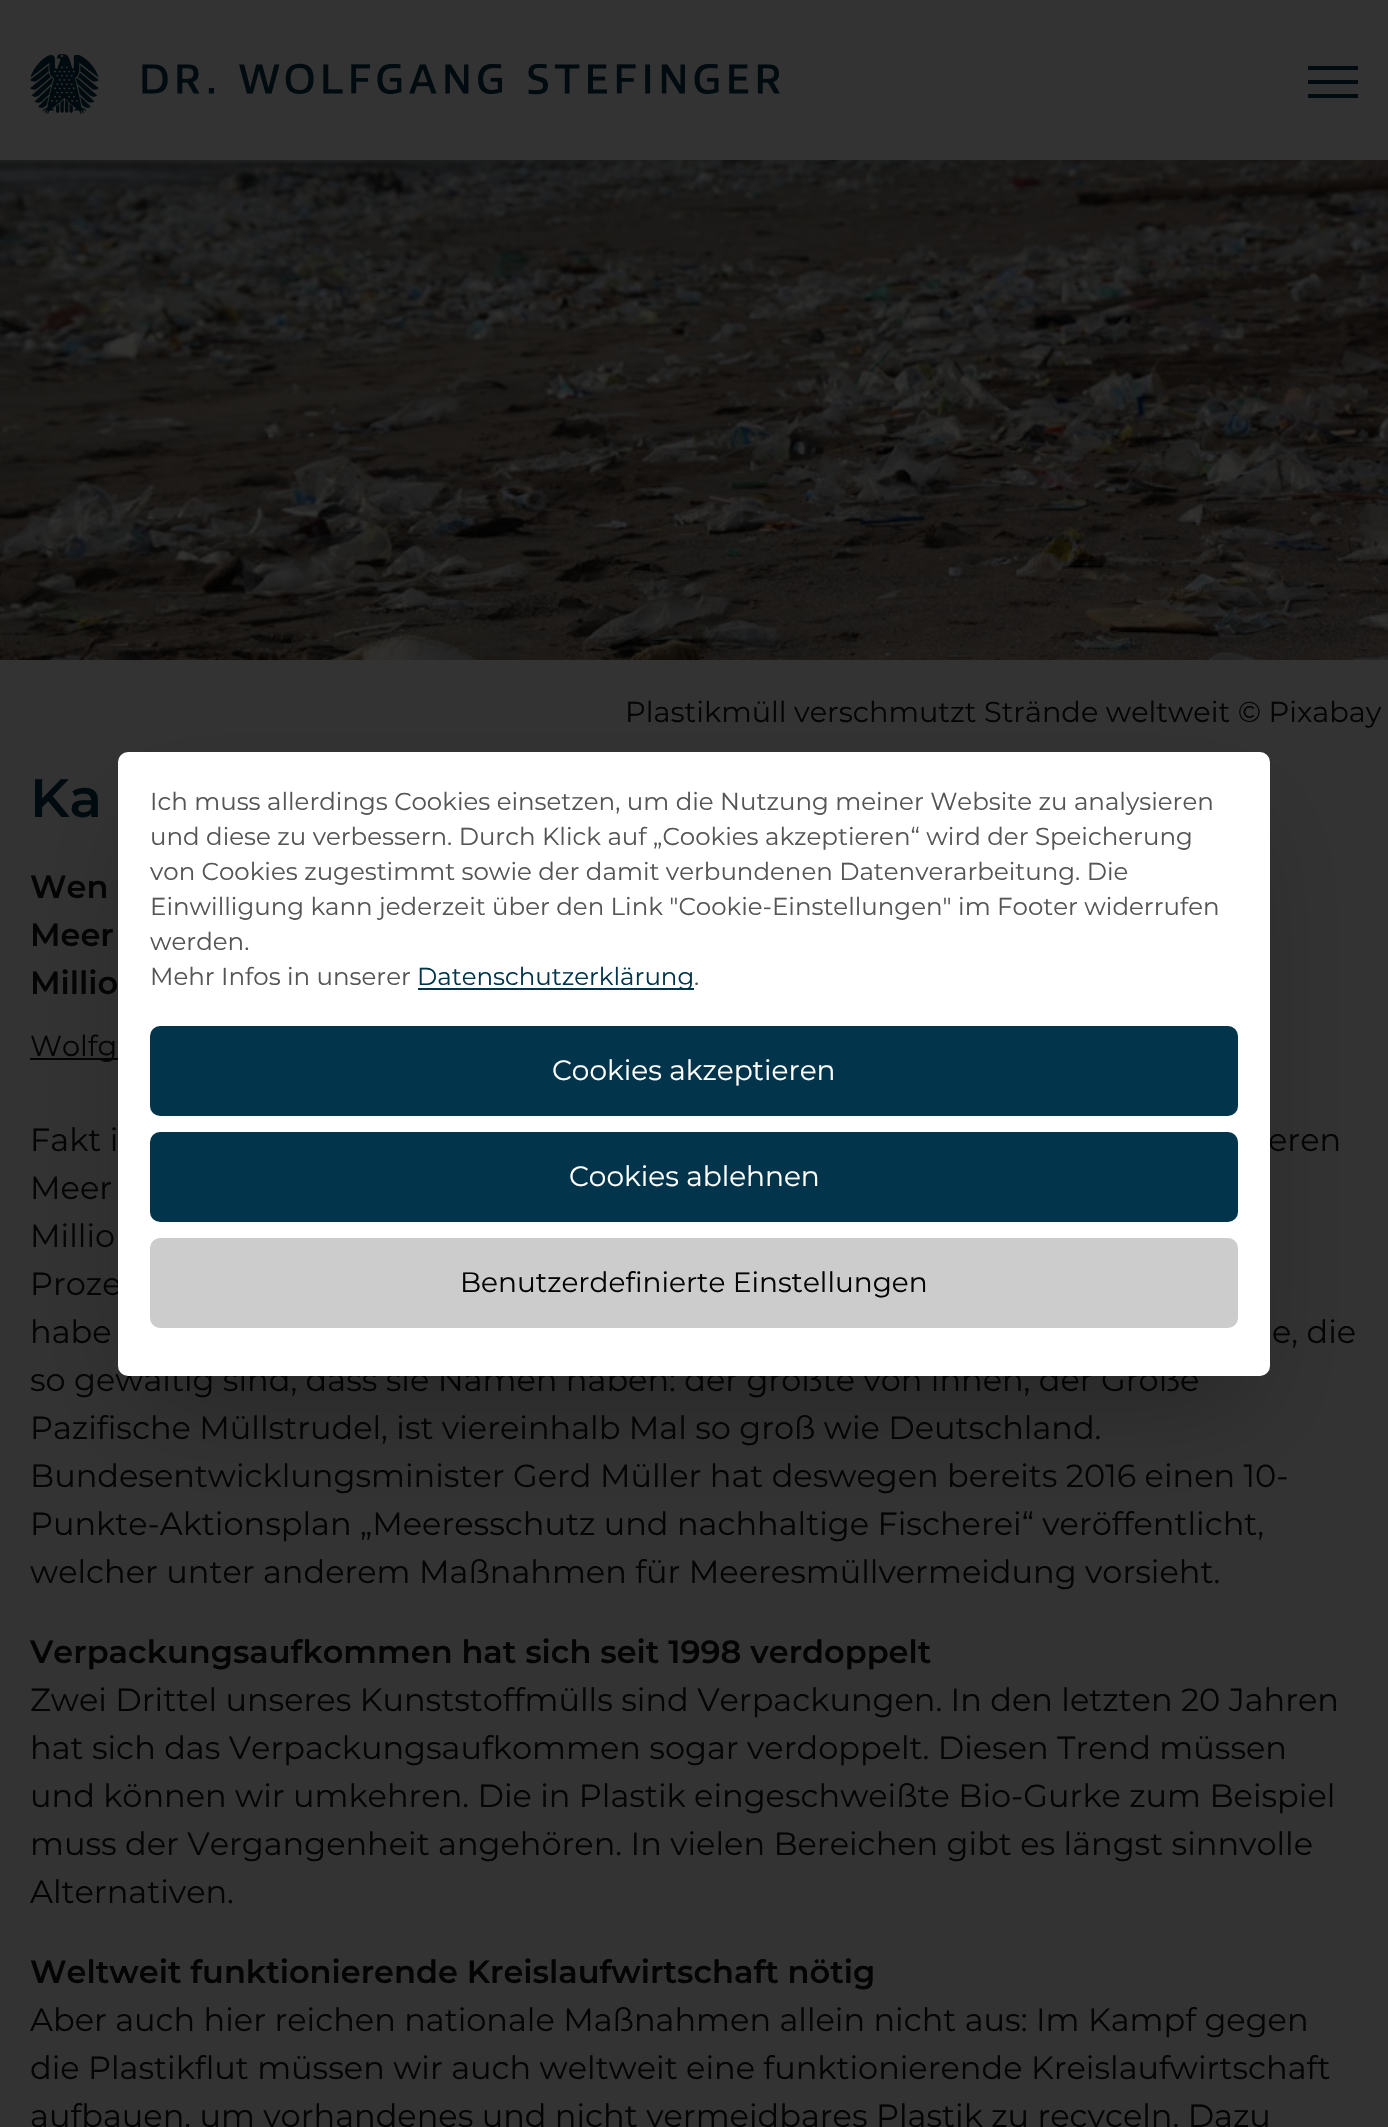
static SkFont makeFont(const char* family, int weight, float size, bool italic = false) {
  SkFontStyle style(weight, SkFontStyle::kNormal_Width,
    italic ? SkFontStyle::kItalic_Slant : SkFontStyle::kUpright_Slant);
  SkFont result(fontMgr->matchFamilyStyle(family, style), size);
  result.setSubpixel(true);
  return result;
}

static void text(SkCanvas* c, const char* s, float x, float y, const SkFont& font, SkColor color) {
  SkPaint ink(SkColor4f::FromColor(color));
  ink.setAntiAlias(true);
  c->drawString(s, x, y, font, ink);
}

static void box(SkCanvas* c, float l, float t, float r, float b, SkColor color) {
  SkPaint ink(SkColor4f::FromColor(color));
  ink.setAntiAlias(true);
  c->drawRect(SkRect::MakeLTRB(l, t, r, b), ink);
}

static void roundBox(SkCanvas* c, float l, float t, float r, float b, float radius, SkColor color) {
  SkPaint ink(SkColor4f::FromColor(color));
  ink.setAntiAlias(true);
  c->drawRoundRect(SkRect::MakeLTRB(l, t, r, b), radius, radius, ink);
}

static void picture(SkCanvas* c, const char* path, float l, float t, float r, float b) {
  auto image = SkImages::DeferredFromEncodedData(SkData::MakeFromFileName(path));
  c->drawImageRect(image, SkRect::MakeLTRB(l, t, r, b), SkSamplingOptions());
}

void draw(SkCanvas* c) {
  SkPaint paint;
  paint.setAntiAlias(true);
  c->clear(0xff333333);
  picture(c, "img_01.png", 30, 54, 780, 114);
  box(c, 1308, 66, 1358, 70, 0xff000b0f);
  box(c, 1308, 80, 1358, 84, 0xff000b0f);
  box(c, 1308, 94, 1358, 98, 0xff000b0f);
  picture(c, "img_02.png", 0, 160, 1388, 660);
  SkFont face1 = makeFont("Montserrat", 400, 28.8f);
  text(c, "Plastikmüll verschmutzt Strände weltweit © Pixabay", 625, 722, face1, 0xff040404);
  SkFont face2 = makeFont("Montserrat", 600, 54);
  text(c, "Ka", 30, 817, face2, 0xff000b0f);
  SkFont face3 = makeFont("Montserrat", 600, 32);
  text(c, "Wen", 30, 898, face3, 0xff040404);
  text(c, "Meer", 30, 946, face3, 0xff040404);
  text(c, "Millio", 30, 994, face3, 0xff040404);
  box(c, 30, 1058, 118, 1060, 0xff040404);
  text(c, "Wolfg", 30, 1056, face1, 0xff040404);
  SkFont face4 = makeFont("Montserrat", 400, 32);
  text(c, "Fakt i", 30, 1151, face4, 0xff040404);
  text(c, "eren", 1268, 1151, face4, 0xff040404);
  text(c, "Meer", 30, 1199, face4, 0xff040404);
  text(c, "Millio", 30, 1247, face4, 0xff040404);
  text(c, "Proze", 30, 1295, face4, 0xff040404);
  text(c, "habe", 30, 1343, face4, 0xff040404);
  text(c, "e, die", 1272, 1343, face4, 0xff040404);
  text(c, "so gewaltig sind, dass sie Namen haben: der größte von ihnen, der Große", 30, 1391, face4, 0xff040404);
  text(c, "Pazifische Müllstrudel, ist viereinhalb Mal so groß wie Deutschland.", 30, 1439, face4, 0xff040404);
  text(c, "Bundesentwicklungsminister Gerd Müller hat deswegen bereits 2016 einen 10-", 30, 1487, face4, 0xff040404);
  text(c, "Punkte-Aktionsplan „Meeresschutz und nachhaltige Fischerei“ veröffentlicht,", 30, 1535, face4, 0xff040404);
  text(c, "welcher unter anderem Maßnahmen für Meeresmüllvermeidung vorsieht.", 30, 1583, face4, 0xff040404);
  text(c, "Verpackungsaufkommen hat sich seit 1998 verdoppelt", 30, 1663, face3, 0xff040404);
  text(c, "Zwei Drittel unseres Kunststoffmülls sind Verpackungen. In den letzten 20 Jahren", 30, 1711, face4, 0xff040404);
  text(c, "hat sich das Verpackungsaufkommen sogar verdoppelt. Diesen Trend müssen", 30, 1759, face4, 0xff040404);
  text(c, "und können wir umkehren. Die in Plastik eingeschweißte Bio-Gurke zum Beispiel", 30, 1807, face4, 0xff040404);
  text(c, "muss der Vergangenheit angehören. In vielen Bereichen gibt es längst sinnvolle", 30, 1855, face4, 0xff040404);
  text(c, "Alternativen.", 30, 1903, face4, 0xff040404);
  text(c, "Weltweit funktionierende Kreislaufwirtschaft nötig", 30, 1983, face3, 0xff040404);
  text(c, "Aber auch hier reichen nationale Maßnahmen allein nicht aus: Im Kampf gegen", 30, 2031, face4, 0xff040404);
  text(c, "die Plastikflut müssen wir auch weltweit eine funktionierende Kreislaufwirtschaft", 30, 2079, face4, 0xff040404);
  text(c, "aufbauen, um vorhandenes und nicht vermeidbares Plastik zu recyceln. Dazu", 30, 2127, face4, 0xff040404);
  paint.setColor(0x40000000);
  paint.setMaskFilter(SkMaskFilter::MakeBlur(kNormal_SkBlurStyle, 50));
  c->drawRect(SkRect::MakeLTRB(142, 826, 1246, 1402), paint);
  paint.setMaskFilter(nullptr);
  roundBox(c, 118, 752, 1270, 1376, 10, 0xffffffff);
  SkFont face5 = makeFont("Montserrat", 400, 24.5f);
  text(c, "Ich muss allerdings Cookies einsetzen, um die Nutzung meiner Website zu analysieren", 150, 810, face5, 0xff555555);
  text(c, "und diese zu verbessern. Durch Klick auf „Cookies akzeptieren“ wird der Speicherung", 150, 845, face5, 0xff555555);
  text(c, "von Cookies zugestimmt sowie der damit verbundenen Datenverarbeitung. Die", 150, 880, face5, 0xff555555);
  text(c, "Einwilligung kann jederzeit über den Link \"Cookie-Einstellungen\" im Footer widerrufen", 150, 915, face5, 0xff555555);
  text(c, "werden.", 150, 950, face5, 0xff555555);
  text(c, "Mehr Infos in unserer", 150, 985, face5, 0xff555555);
  box(c, 418, 988, 694, 990, 0xff02354b);
  text(c, "Datenschutzerklärung", 417, 985, face5, 0xff02354b);
  text(c, ".", 694, 985, face5, 0xff555555);
  roundBox(c, 150, 1026, 1238, 1116, 10, 0xff02354b);
  SkFont face6 = makeFont("Montserrat", 400, 28);
  text(c, "Cookies akzeptieren", 552, 1080, face6, 0xffffffff);
  roundBox(c, 150, 1132, 1238, 1222, 10, 0xff02354b);
  text(c, "Cookies ablehnen", 569, 1186, face6, 0xffffffff);
  roundBox(c, 150, 1238, 1238, 1328, 10, 0xffcdcccd);
  text(c, "Benutzerdefinierte Einstellungen", 460, 1292, face6, 0xff040404);
}
